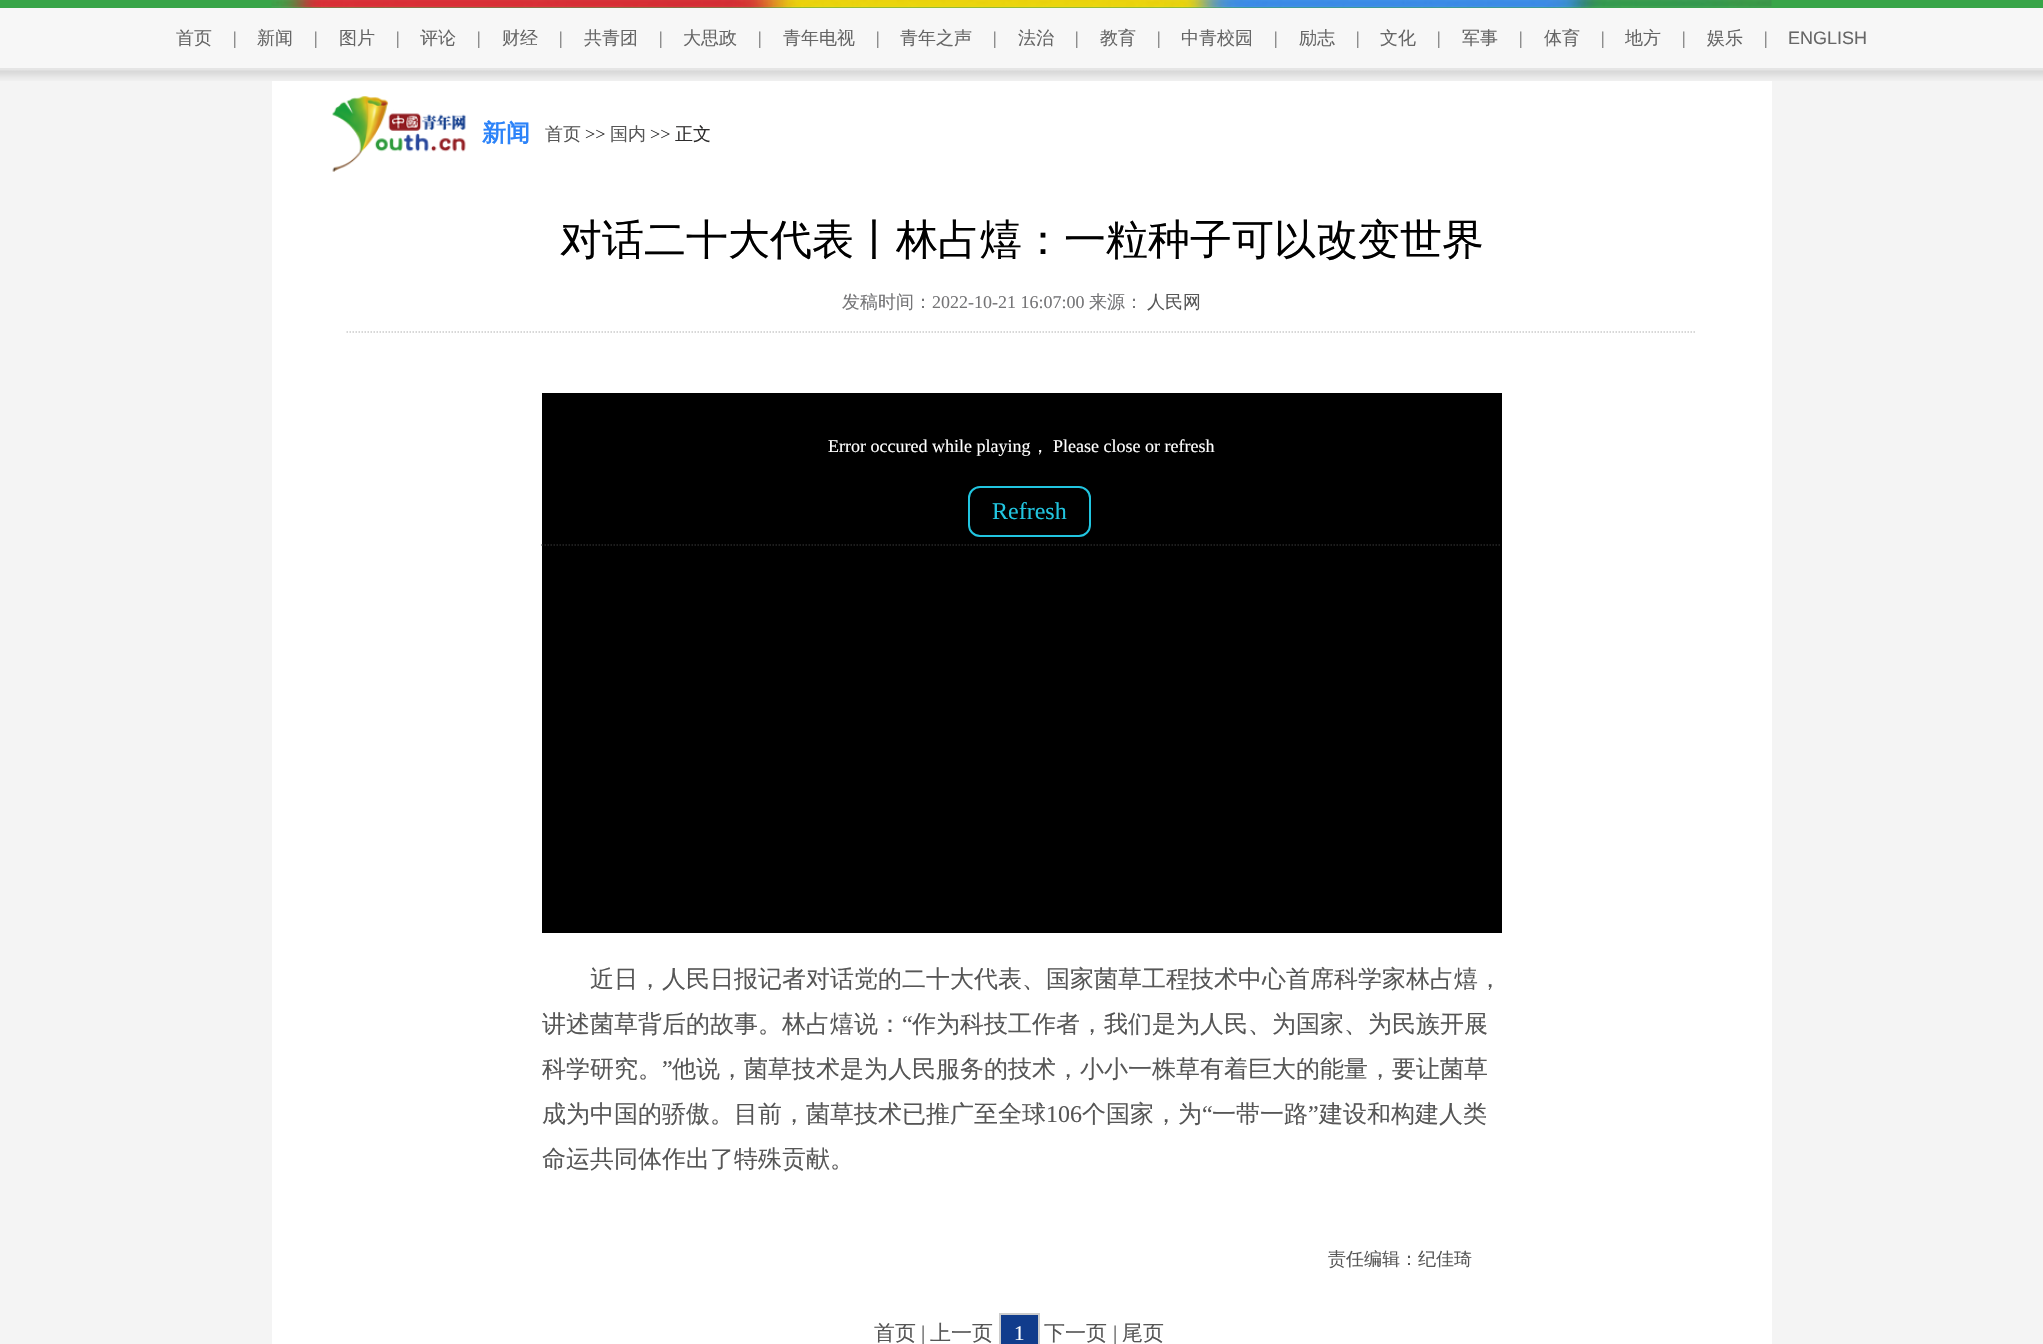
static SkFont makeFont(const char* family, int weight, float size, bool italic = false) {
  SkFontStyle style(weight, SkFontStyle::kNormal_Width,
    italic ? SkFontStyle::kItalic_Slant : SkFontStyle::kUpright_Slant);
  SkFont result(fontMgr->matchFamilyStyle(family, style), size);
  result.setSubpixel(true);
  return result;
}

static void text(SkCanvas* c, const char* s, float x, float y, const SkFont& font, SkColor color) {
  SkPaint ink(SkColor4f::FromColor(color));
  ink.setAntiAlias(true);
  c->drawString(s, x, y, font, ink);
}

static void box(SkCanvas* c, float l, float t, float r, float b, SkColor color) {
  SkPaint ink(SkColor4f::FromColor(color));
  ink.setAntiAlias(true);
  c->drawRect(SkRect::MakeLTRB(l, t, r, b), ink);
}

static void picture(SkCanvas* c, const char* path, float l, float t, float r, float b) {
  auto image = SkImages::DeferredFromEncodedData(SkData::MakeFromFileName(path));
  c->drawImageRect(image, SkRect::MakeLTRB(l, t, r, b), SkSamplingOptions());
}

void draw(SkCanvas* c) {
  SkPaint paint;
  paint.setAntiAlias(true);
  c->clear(0xfff7f7f7);
  box(c, 0, 0, 2043, 8, 0xff38a548);
  box(c, 0, 68, 2043, 69, 0xffe5e5e5);
  picture(c, "img_01.png", 271, 0, 1772, 8);
  SkFont face1 = makeFont("WenQuanYi Zen Hei", 500, 18);
  text(c, "首页", 176, 44, face1, 0xff666666);
  SkFont face2 = makeFont("Liberation Serif", 400, 18);
  text(c, "|", 233, 44, face2, 0xff666666);
  text(c, "新闻", 257, 44, face1, 0xff666666);
  text(c, "|", 314, 44, face2, 0xff666666);
  text(c, "图片", 339, 44, face1, 0xff666666);
  text(c, "|", 396, 44, face2, 0xff666666);
  text(c, "评论", 420, 44, face1, 0xff666666);
  text(c, "|", 477, 44, face2, 0xff666666);
  text(c, "财经", 502, 44, face1, 0xff666666);
  text(c, "|", 559, 44, face2, 0xff666666);
  text(c, "共青团", 584, 44, face1, 0xff666666);
  text(c, "|", 659, 44, face2, 0xff666666);
  text(c, "大思政", 683, 44, face1, 0xff666666);
  text(c, "|", 758, 44, face2, 0xff666666);
  text(c, "青年电视", 783, 44, face1, 0xff666666);
  text(c, "|", 876, 44, face2, 0xff666666);
  text(c, "青年之声", 900, 44, face1, 0xff666666);
  text(c, "|", 993, 44, face2, 0xff666666);
  text(c, "法治", 1018, 44, face1, 0xff666666);
  text(c, "|", 1075, 44, face2, 0xff666666);
  text(c, "教育", 1100, 44, face1, 0xff666666);
  text(c, "|", 1157, 44, face2, 0xff666666);
  text(c, "中青校园", 1181, 44, face1, 0xff666666);
  text(c, "|", 1274, 44, face2, 0xff666666);
  text(c, "励志", 1299, 44, face1, 0xff666666);
  text(c, "|", 1356, 44, face2, 0xff666666);
  text(c, "文化", 1380, 44, face1, 0xff666666);
  text(c, "|", 1437, 44, face2, 0xff666666);
  text(c, "军事", 1462, 44, face1, 0xff666666);
  text(c, "|", 1519, 44, face2, 0xff666666);
  text(c, "体育", 1544, 44, face1, 0xff666666);
  text(c, "|", 1601, 44, face2, 0xff666666);
  text(c, "地方", 1625, 44, face1, 0xff666666);
  text(c, "|", 1682, 44, face2, 0xff666666);
  text(c, "娱乐", 1707, 44, face1, 0xff666666);
  text(c, "|", 1764, 44, face2, 0xff666666);
  SkFont face3 = makeFont("Liberation Sans", 400, 18);
  text(c, "ENGLISH", 1788, 44, face3, 0xff666666);
  box(c, 0, 81, 2043, 1344, 0xfff4f4f4);
  picture(c, "img_02.png", 0, 69, 2043, 81);
  box(c, 272, 81, 1772, 1344, 0xffffffff);
  picture(c, "img_03.png", 332, 96, 466, 172);
  SkFont face4 = makeFont("WenQuanYi Zen Hei", 700, 24);
  text(c, "新闻", 482, 141, face4, 0xff2c83f9);
  text(c, "首页", 545, 140, face1, 0xff565656);
  text(c, ">>", 585, 140, face2, 0xff2d2c2c);
  text(c, "国内", 610, 140, face1, 0xff565656);
  text(c, ">>", 650, 140, face2, 0xff2d2c2c);
  text(c, "正文", 675, 140, face1, 0xff2d2c2c);
  paint.setStyle(SkPaint::kStroke_Style);
  paint.setStrokeWidth(1.5f);
  paint.setColor(0xffcccccc);
  paint.setPathEffect(SkDashPathEffect::Make({{1.5f, 1.5f}}, 0));
  c->drawPath(SkPathBuilder().moveTo(346.5f, 332).lineTo(1696.5f, 332).detach(), paint);
  paint.setPathEffect(nullptr);
  SkFont face5 = makeFont("WenQuanYi Zen Hei", 500, 42);
  text(c, "对话二十大代表丨林占熺：一粒种子可以改变世界", 560, 254, face5, 0xff000000);
  text(c, "发稿时间：", 842, 308, face1, 0xff757577);
  text(c, "2022-10-21 16:07:00", 932, 308, face2, 0xff757577);
  text(c, "来源：", 1089, 308, face1, 0xff757577);
  text(c, "人民网", 1147, 308, face1, 0xff565656);
  box(c, 542, 393, 1502, 933, 0xff000000);
  text(c, "Error occured while playing", 828, 452, face2, 0xffffffff);
  text(c, "，", 1031, 452, face1, 0xffffffff);
  text(c, "Please close or refresh", 1053, 452, face2, 0xffffffff);
  paint.setColor(0xff262626);
  paint.setPathEffect(SkDashPathEffect::Make({{1.5f, 1.5f}}, 0));
  c->drawPath(SkPathBuilder().moveTo(541.5f, 545).lineTo(1501.5f, 545).detach(), paint);
  paint.setPathEffect(nullptr);
  paint.setStrokeWidth(2);
  paint.setColor(0xff21c5e0);
  c->drawRoundRect(SkRect::MakeLTRB(969, 487, 1090, 536), 11, 11, paint);
  SkFont face6 = makeFont("Liberation Serif", 400, 24);
  text(c, "Refresh", 992, 519, face6, 0xff21c5e0);
  SkFont face7 = makeFont("WenQuanYi Zen Hei", 500, 24);
  text(c, "近日，人民日报记者对话党的二十大代表、国家菌草工程技术中心首席科学家林占熺，", 590, 987, face7, 0xff565656);
  text(c, "讲述菌草背后的故事。林占熺说：", 542, 1032, face7, 0xff565656);
  text(c, "“", 902, 1032, face6, 0xff565656);
  text(c, "作为科技工作者，我们是为人民、为国家、为民族开展", 912, 1032, face7, 0xff565656);
  text(c, "科学研究。", 542, 1077, face7, 0xff565656);
  text(c, "”", 662, 1077, face6, 0xff565656);
  text(c, "他说，菌草技术是为人民服务的技术，小小一株草有着巨大的能量，要让菌草", 672, 1077, face7, 0xff565656);
  text(c, "成为中国的骄傲。目前，菌草技术已推广至全球", 542, 1122, face7, 0xff565656);
  text(c, "106", 1046, 1122, face6, 0xff565656);
  text(c, "个国家，为", 1082, 1122, face7, 0xff565656);
  text(c, "“", 1202, 1122, face6, 0xff565656);
  text(c, "一带一路", 1212, 1122, face7, 0xff565656);
  text(c, "”", 1308, 1122, face6, 0xff565656);
  text(c, "建设和构建人类", 1319, 1122, face7, 0xff565656);
  text(c, "命运共同体作出了特殊贡献。", 542, 1167, face7, 0xff565656);
  text(c, "责任编辑：纪佳琦", 1328, 1265, face1, 0xff565656);
  SkFont face8 = makeFont("WenQuanYi Zen Hei", 500, 21);
  text(c, "首页", 874, 1340, face8, 0xff565656);
  SkFont face9 = makeFont("Liberation Serif", 400, 21);
  text(c, "|", 921, 1340, face9, 0xff565656);
  text(c, "上一页", 930, 1340, face8, 0xff565656);
  paint.setStyle(SkPaint::kFill_Style);
  paint.setColor(0xff113c8c);
  c->drawRect(SkRect::MakeLTRB(1000, 1314, 1039, 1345), paint);
  paint.setStyle(SkPaint::kStroke_Style);
  paint.setColor(0xffcccccc);
  c->drawRect(SkRect::MakeLTRB(1000, 1314, 1039, 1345), paint);
  text(c, "1", 1014, 1340, face9, 0xffffffff);
  text(c, "下一页", 1044, 1340, face8, 0xff565656);
  text(c, "|", 1113, 1340, face9, 0xff565656);
  text(c, "尾页", 1122, 1340, face8, 0xff565656);
}
